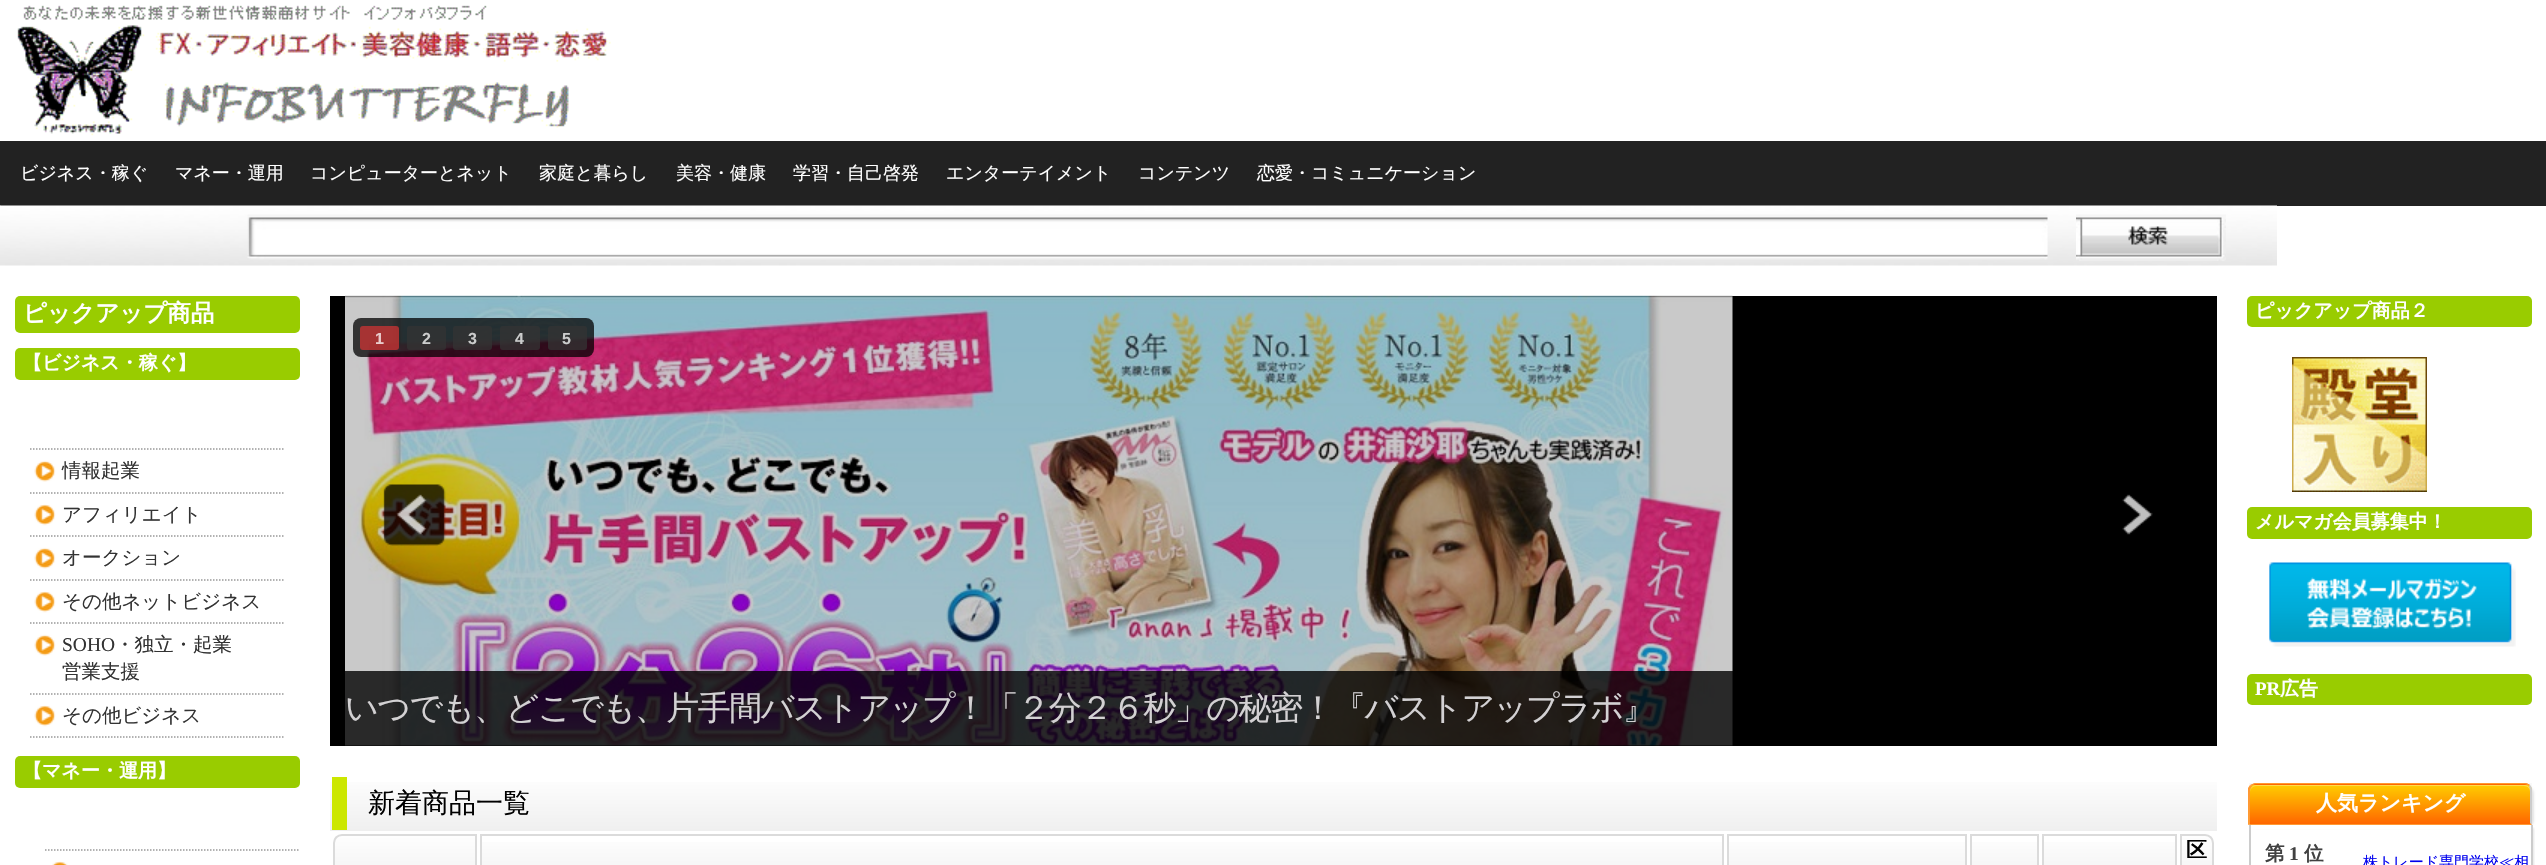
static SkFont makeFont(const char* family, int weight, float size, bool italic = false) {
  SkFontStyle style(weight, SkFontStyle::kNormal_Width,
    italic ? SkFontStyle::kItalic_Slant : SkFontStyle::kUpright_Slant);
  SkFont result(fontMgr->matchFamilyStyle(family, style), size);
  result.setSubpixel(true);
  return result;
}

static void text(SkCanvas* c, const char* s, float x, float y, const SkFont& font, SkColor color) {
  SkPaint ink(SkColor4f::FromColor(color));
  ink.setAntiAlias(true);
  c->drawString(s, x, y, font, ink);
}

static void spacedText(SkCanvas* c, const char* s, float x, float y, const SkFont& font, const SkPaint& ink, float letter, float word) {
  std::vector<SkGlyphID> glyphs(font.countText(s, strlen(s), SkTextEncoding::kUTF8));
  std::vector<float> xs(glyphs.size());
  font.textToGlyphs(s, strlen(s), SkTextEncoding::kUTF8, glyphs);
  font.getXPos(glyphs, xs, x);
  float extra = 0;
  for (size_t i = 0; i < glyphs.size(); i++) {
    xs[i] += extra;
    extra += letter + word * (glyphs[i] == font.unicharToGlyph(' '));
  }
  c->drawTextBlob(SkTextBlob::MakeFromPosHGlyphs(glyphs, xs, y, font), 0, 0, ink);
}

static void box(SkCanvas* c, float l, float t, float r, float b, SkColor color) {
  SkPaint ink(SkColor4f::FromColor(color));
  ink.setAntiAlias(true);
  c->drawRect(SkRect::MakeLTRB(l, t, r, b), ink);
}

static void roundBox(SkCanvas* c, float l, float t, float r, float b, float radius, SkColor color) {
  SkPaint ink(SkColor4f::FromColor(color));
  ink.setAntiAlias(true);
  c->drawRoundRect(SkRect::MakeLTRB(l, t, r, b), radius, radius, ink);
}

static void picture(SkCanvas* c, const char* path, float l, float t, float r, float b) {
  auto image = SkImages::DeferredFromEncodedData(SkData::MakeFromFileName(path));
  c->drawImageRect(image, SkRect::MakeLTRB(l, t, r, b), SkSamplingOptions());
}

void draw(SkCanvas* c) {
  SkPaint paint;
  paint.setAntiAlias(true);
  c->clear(0xffffffff);
  picture(c, "img_01.png", 17, 5, 611, 136);
  roundBox(c, 0, 141, 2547, 206, 1.5f, 0xff222222);
  paint.setStyle(SkPaint::kStroke_Style);
  paint.setStrokeWidth(6);
  paint.setColor(0xff222222);
  c->drawPath(SkPathBuilder().moveTo(3, 144).lineTo(2544, 144).lineTo(2544, 202.5f).lineTo(3, 202.5f).close().detach(), paint);
  SkFont face1 = makeFont("WenQuanYi Zen Hei", 500, 18);
  text(c, "ビジネス・稼ぐ", 20, 179, face1, 0xffffffff);
  text(c, "マネー・運用", 175, 179, face1, 0xffffffff);
  text(c, "コンピューターとネット", 310, 179, face1, 0xffffffff);
  text(c, "家庭と暮らし", 539, 179, face1, 0xffffffff);
  text(c, "美容・健康", 676, 179, face1, 0xffffffff);
  text(c, "学習・自己啓発", 793, 179, face1, 0xffffffff);
  text(c, "エンターテイメント", 946, 179, face1, 0xffffffff);
  text(c, "コンテンツ", 1138, 179, face1, 0xffffffff);
  text(c, "恋愛・コミュニケーション", 1257, 179, face1, 0xffffffff);
  picture(c, "img_02.png", 0, 205, 2277, 266);
  picture(c, "img_03.png", 247, 214, 2048, 260);
  picture(c, "img_04.png", 2076, 214, 2226, 261);
  roundBox(c, 15, 296, 300, 333, 5, 0xff99cc00);
  SkFont face2 = makeFont("WenQuanYi Zen Hei", 700, 23.5f);
  text(c, "ピックアップ商品", 23, 321, face2, 0xffffffff);
  roundBox(c, 15, 348, 300, 380, 5, 0xff99cc00);
  SkFont face3 = makeFont("WenQuanYi Zen Hei", 700, 19);
  text(c, "【ビジネス・稼ぐ】", 23, 369, face3, 0xffffffff);
  paint.setStrokeWidth(1.5f);
  paint.setColor(0xff999999);
  paint.setPathEffect(SkDashPathEffect::Make({{1.5f, 1.5f}}, 0));
  c->drawPath(SkPathBuilder().moveTo(30, 449).lineTo(285, 449).detach(), paint);
  paint.setPathEffect(nullptr);
  paint.setPathEffect(SkDashPathEffect::Make({{1.5f, 1.5f}}, 0));
  c->drawPath(SkPathBuilder().moveTo(30, 493).lineTo(285, 493).detach(), paint);
  paint.setPathEffect(nullptr);
  picture(c, "img_05.png", 34, 460, 56, 482);
  SkFont face4 = makeFont("WenQuanYi Zen Hei", 500, 19.5f);
  text(c, "情報起業", 62, 477, face4, 0xff333333);
  paint.setPathEffect(SkDashPathEffect::Make({{1.5f, 1.5f}}, 0));
  c->drawPath(SkPathBuilder().moveTo(30, 536).lineTo(285, 536).detach(), paint);
  paint.setPathEffect(nullptr);
  picture(c, "img_06.png", 34, 504, 56, 526);
  text(c, "アフィリエイト", 62, 521, face4, 0xff333333);
  paint.setPathEffect(SkDashPathEffect::Make({{1.5f, 1.5f}}, 0));
  c->drawPath(SkPathBuilder().moveTo(30, 580).lineTo(285, 580).detach(), paint);
  paint.setPathEffect(nullptr);
  picture(c, "img_05.png", 34, 547, 56, 569);
  text(c, "オークション", 62, 564, face4, 0xff333333);
  paint.setPathEffect(SkDashPathEffect::Make({{1.5f, 1.5f}}, 0));
  c->drawPath(SkPathBuilder().moveTo(30, 623).lineTo(285, 623).detach(), paint);
  paint.setPathEffect(nullptr);
  picture(c, "img_06.png", 34, 591, 56, 613);
  text(c, "その他ネットビジネス", 62, 608, face4, 0xff333333);
  paint.setPathEffect(SkDashPathEffect::Make({{1.5f, 1.5f}}, 0));
  c->drawPath(SkPathBuilder().moveTo(30, 694).lineTo(285, 694).detach(), paint);
  paint.setPathEffect(nullptr);
  picture(c, "img_05.png", 34, 634, 56, 656);
  SkFont face5 = makeFont("Liberation Serif", 400, 19.5f);
  text(c, "SOHO", 62, 651, face5, 0xff333333);
  text(c, "・独立・起業", 115, 651, face4, 0xff333333);
  text(c, "営業支援", 62, 678, face4, 0xff333333);
  paint.setPathEffect(SkDashPathEffect::Make({{1.5f, 1.5f}}, 0));
  c->drawPath(SkPathBuilder().moveTo(30, 737).lineTo(285, 737).detach(), paint);
  paint.setPathEffect(nullptr);
  picture(c, "img_06.png", 34, 705, 56, 727);
  text(c, "その他ビジネス", 62, 722, face4, 0xff333333);
  roundBox(c, 15, 756, 300, 788, 5, 0xff99cc00);
  text(c, "【マネー・運用】", 23, 777, face3, 0xffffffff);
  paint.setPathEffect(SkDashPathEffect::Make({{1.5f, 1.5f}}, 0));
  c->drawPath(SkPathBuilder().moveTo(45, 850).lineTo(300, 850).detach(), paint);
  paint.setPathEffect(nullptr);
  picture(c, "img_07.png", 52, 861, 68, 865);
  box(c, 330, 296, 2217, 746, 0xff000000);
  picture(c, "img_10.png", 345, 295, 1733, 746);
  roundBox(c, 353, 318, 594, 357, 8, 0xbf000000);
  roundBox(c, 360, 326, 399, 350, 3, 0xbfcc3333);
  SkFont face6 = makeFont("Liberation Sans", 700, 16);
  text(c, "1", 375, 344, face6, 0xffe9cccc);
  roundBox(c, 407, 326, 446, 350, 3, 0xbf333333);
  text(c, "2", 422, 344, face6, 0xffcbcccc);
  roundBox(c, 453, 326, 492, 350, 3, 0xbf333333);
  text(c, "3", 468, 344, face6, 0xffcbcccc);
  roundBox(c, 500, 326, 540, 350, 3, 0xbf333333);
  text(c, "4", 515, 344, face6, 0xffcbcccc);
  roundBox(c, 548, 326, 587, 350, 3, 0xbf333333);
  text(c, "5", 562, 344, face6, 0xffcbcccc);
  picture(c, "img_08.png", 383, 484, 446, 546);
  picture(c, "img_09.png", 2122, 494, 2153, 535);
  box(c, 345, 671, 1733, 746, 0xcc000000);
  SkFont face7 = makeFont("WenQuanYi Zen Hei", 500, 33);
  paint.setStyle(SkPaint::kFill_Style);
  paint.setColor(0xffd3d1d3);
  spacedText(c, "いつでも、どこでも、片手間バストアップ！「２分２６秒」の秘密！『バストアップラボ』", 345, 719, face7, paint, -1.5f, 0);
  {
    const SkColor colors[] = {0xfffefefe, 0xffefefef};
    const float stops[] = {0, 1};
    const SkPoint ends[] = {{330, 776}, {330, 831}};
    paint.setShader(SkGradientShader::MakeLinear(ends, colors, stops, 2, SkTileMode::kClamp));
    paint.setAlpha(255);
  }
  c->drawRect(SkRect::MakeLTRB(330, 782, 2217, 831), paint);
  box(c, 332, 777, 347, 830, 0xffcce700);
  SkFont face8 = makeFont("WenQuanYi Zen Hei", 500, 27);
  text(c, "新着商品一覧", 368, 812, face8, 0xff000000);
  c->save();
  c->clipPath(SkPathBuilder().moveTo(342, 834).lineTo(477, 834).lineTo(477, 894).lineTo(333, 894).lineTo(333, 843).cubicTo(333, 838, 337, 834, 342, 834).close().detach(), true);
  {
    const SkColor colors[] = {0xfffefefe, 0xffefefef};
    const float stops[] = {0, 1};
    const SkPoint ends[] = {{335, 836}, {335, 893}};
    paint.setShader(SkGradientShader::MakeLinear(ends, colors, stops, 2, SkTileMode::kClamp));
    paint.setAlpha(255);
  }
  c->drawRect(SkRect::MakeLTRB(333, 836, 475, 865), paint);
  c->restore();
  paint.setStyle(SkPaint::kStroke_Style);
  paint.setStrokeWidth(2);
  paint.setShader(nullptr);
  paint.setColor(0xffdbdbdb);
  c->drawPath(SkPathBuilder().moveTo(342, 835).lineTo(476, 835).lineTo(476, 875).lineTo(334, 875).lineTo(334, 843).cubicTo(334, 838.5f, 337.5f, 835, 342, 835).close().detach(), paint);
  paint.setStyle(SkPaint::kFill_Style);
  {
    const SkColor colors[] = {0xfffefefe, 0xffefefef};
    const float stops[] = {0, 1};
    const SkPoint ends[] = {{482, 836}, {482, 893}};
    paint.setShader(SkGradientShader::MakeLinear(ends, colors, stops, 2, SkTileMode::kClamp));
    paint.setAlpha(255);
  }
  c->drawRect(SkRect::MakeLTRB(482, 842, 1722, 865), paint);
  paint.setStyle(SkPaint::kStroke_Style);
  paint.setShader(nullptr);
  paint.setColor(0xffdbdbdb);
  c->drawRect(SkRect::MakeLTRB(481, 835, 1723, 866), paint);
  paint.setStyle(SkPaint::kFill_Style);
  {
    const SkColor colors[] = {0xfffefefe, 0xffefefef};
    const float stops[] = {0, 1};
    const SkPoint ends[] = {{1728, 836}, {1728, 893}};
    paint.setShader(SkGradientShader::MakeLinear(ends, colors, stops, 2, SkTileMode::kClamp));
    paint.setAlpha(255);
  }
  c->drawRect(SkRect::MakeLTRB(1729, 842, 1965, 865), paint);
  paint.setStyle(SkPaint::kStroke_Style);
  paint.setShader(nullptr);
  paint.setColor(0xffdbdbdb);
  c->drawRect(SkRect::MakeLTRB(1728, 835, 1966, 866), paint);
  paint.setStyle(SkPaint::kFill_Style);
  {
    const SkColor colors[] = {0xfffefefe, 0xffefefef};
    const float stops[] = {0, 1};
    const SkPoint ends[] = {{1971, 836}, {1971, 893}};
    paint.setShader(SkGradientShader::MakeLinear(ends, colors, stops, 2, SkTileMode::kClamp));
    paint.setAlpha(255);
  }
  c->drawRect(SkRect::MakeLTRB(1972, 842, 2037, 865), paint);
  paint.setStyle(SkPaint::kStroke_Style);
  paint.setShader(nullptr);
  paint.setColor(0xffdbdbdb);
  c->drawRect(SkRect::MakeLTRB(1971, 835, 2038, 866), paint);
  paint.setStyle(SkPaint::kFill_Style);
  {
    const SkColor colors[] = {0xfffefefe, 0xffefefef};
    const float stops[] = {0, 1};
    const SkPoint ends[] = {{2043, 836}, {2043, 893}};
    paint.setShader(SkGradientShader::MakeLinear(ends, colors, stops, 2, SkTileMode::kClamp));
    paint.setAlpha(255);
  }
  c->drawRect(SkRect::MakeLTRB(2044, 842, 2175, 865), paint);
  paint.setStyle(SkPaint::kStroke_Style);
  paint.setShader(nullptr);
  paint.setColor(0xffdbdbdb);
  c->drawRect(SkRect::MakeLTRB(2043, 835, 2176, 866), paint);
  c->save();
  c->clipPath(SkPathBuilder().moveTo(2180, 834).lineTo(2205, 834).cubicTo(2210, 834, 2214, 838, 2214, 843).lineTo(2214, 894).lineTo(2180, 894).close().detach(), true);
  paint.setStyle(SkPaint::kFill_Style);
  {
    const SkColor colors[] = {0xfffefefe, 0xffefefef};
    const float stops[] = {0, 1};
    const SkPoint ends[] = {{2181, 836}, {2181, 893}};
    paint.setShader(SkGradientShader::MakeLinear(ends, colors, stops, 2, SkTileMode::kClamp));
    paint.setAlpha(255);
  }
  c->drawRect(SkRect::MakeLTRB(2182, 836, 2214, 865), paint);
  c->restore();
  paint.setStyle(SkPaint::kStroke_Style);
  paint.setShader(nullptr);
  paint.setColor(0xffdbdbdb);
  c->drawPath(SkPathBuilder().moveTo(2181, 835).lineTo(2205, 835).cubicTo(2209.5f, 835, 2213, 838.5f, 2213, 843).lineTo(2213, 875).lineTo(2181, 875).close().detach(), paint);
  SkFont face9 = makeFont("WenQuanYi Zen Hei", 700, 21);
  text(c, "区", 2186, 857, face9, 0xff000000);
  roundBox(c, 2247, 296, 2532, 327, 5, 0xff99cc00);
  text(c, "ピックアップ商品２", 2255, 317, face3, 0xffffffff);
  picture(c, "img_11.png", 2292, 357, 2427, 492);
  roundBox(c, 2247, 507, 2532, 539, 5, 0xff99cc00);
  text(c, "メルマガ会員募集中！", 2255, 528, face3, 0xffffffff);
  picture(c, "img_12.png", 2269, 562, 2516, 647);
  roundBox(c, 2247, 674, 2532, 705, 5, 0xff99cc00);
  SkFont face10 = makeFont("Liberation Serif", 700, 19);
  text(c, "PR", 2255, 695, face10, 0xffffffff);
  text(c, "広告", 2280, 695, face3, 0xffffffff);
  box(c, 2249, 783, 2532, 825, 0xfff9f9f9);
  paint.setStyle(SkPaint::kFill_Style);
  paint.setColor(0x1a000000);
  paint.setMaskFilter(SkMaskFilter::MakeBlur(kNormal_SkBlurStyle, 1));
  c->drawRoundRect(SkRect::MakeLTRB(2250, 786, 2534, 828), 8, 8, paint);
  paint.setMaskFilter(nullptr);
  c->save();
  c->clipPath(SkPathBuilder().moveTo(2257, 783).lineTo(2524, 783).cubicTo(2528.5f, 783, 2532, 786.5f, 2532, 791).lineTo(2532, 825).lineTo(2249, 825).lineTo(2249, 791).cubicTo(2249, 786.5f, 2252.5f, 783, 2257, 783).close().detach(), true);
  {
    const SkColor colors[] = {0xffffcc00, 0xffff6600};
    const float stops[] = {0, 1};
    const SkPoint ends[] = {{2250, 746}, {2250, 785}};
    paint.setShader(SkGradientShader::MakeLinear(ends, colors, stops, 2, SkTileMode::kClamp));
    paint.setAlpha(255);
  }
  c->drawRect(SkRect::MakeLTRB(2249, 783, 2532, 785), paint);
  {
    const SkColor colors[] = {0xffffcc00, 0xffff6600};
    const float stops[] = {0, 1};
    const SkPoint ends[] = {{2250, 785}, {2250, 824}};
    paint.setShader(SkGradientShader::MakeLinear(ends, colors, stops, 2, SkTileMode::kClamp));
    paint.setAlpha(255);
  }
  c->drawRect(SkRect::MakeLTRB(2250, 785, 2532, 824), paint);
  c->restore();
  paint.setShader(nullptr);
  paint.setColor(0x4dffffff);
  c->drawPath(SkPathBuilder().moveTo(2256, 786).lineTo(2524, 786).cubicTo(2528, 786, 2530, 789, 2530, 792).lineTo(2530, 824).lineTo(2531, 824).lineTo(2531, 791).cubicTo(2531, 788, 2528, 785, 2525, 785).lineTo(2256, 785).cubicTo(2253, 785, 2250, 788, 2250, 791).lineTo(2250, 792).cubicTo(2250, 789, 2253, 786, 2256, 786).close().detach(), paint);
  paint.setColor(0xffff9933);
  c->drawPath(SkPathBuilder().moveTo(2256, 783).cubicTo(2254, 783, 2252, 784, 2250, 785).lineTo(2252, 786).cubicTo(2253, 785, 2254, 784, 2256, 784).lineTo(2524, 784).cubicTo(2526, 784, 2528, 785, 2529, 786).lineTo(2530, 785).cubicTo(2529, 784, 2527, 783, 2524, 783).close().detach(), paint);
  paint.setColor(0xffcccccc);
  c->drawPath(SkPathBuilder().moveTo(2532, 825).lineTo(2532, 790).cubicTo(2532, 788, 2531.5f, 786.5f, 2530, 785).lineTo(2529, 786).cubicTo(2529.5f, 787.5f, 2530, 788.5f, 2530, 790).lineTo(2530, 823).close().detach(), paint);
  paint.setColor(0xffff9933);
  c->drawPath(SkPathBuilder().moveTo(2532, 825).lineTo(2530, 823).lineTo(2530, 824).lineTo(2250, 824).lineTo(2248, 825).close().detach(), paint);
  c->drawPath(SkPathBuilder().moveTo(2248, 825).lineTo(2248, 788).lineTo(2250, 785).lineTo(2252, 786).cubicTo(2251, 787, 2250, 789, 2250, 790).lineTo(2250, 824).close().detach(), paint);
  text(c, "人気ランキング", 2316, 810, face9, 0xffffffff);
  box(c, 2251, 825, 2531, 829, 0xffffffff);
  c->save();
  c->clipRect(SkRect::MakeLTRB(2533, 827, 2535, 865));
  paint.setColor(0x1a000000);
  paint.setMaskFilter(SkMaskFilter::MakeBlur(kNormal_SkBlurStyle, 1));
  c->drawRect(SkRect::MakeLTRB(2250, 828, 2534, 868), paint);
  paint.setMaskFilter(nullptr);
  c->restore();
  box(c, 2531, 825, 2533, 865, 0xffcccccc);
  box(c, 2249, 825, 2251, 865, 0xffcccccc);
  SkFont face11 = makeFont("WenQuanYi Zen Hei", 700, 19.5f);
  text(c, "第", 2265, 860, face11, 0xff414141);
  SkFont face12 = makeFont("Liberation Serif", 700, 19.5f);
  text(c, "1", 2289, 860, face12, 0xff414141);
  text(c, "位", 2304, 860, face11, 0xff414141);
  SkFont face13 = makeFont("WenQuanYi Zen Hei", 500, 15);
  text(c, "株トレード専門学校≪相", 2363, 867, face13, 0xff0000ee);
}
